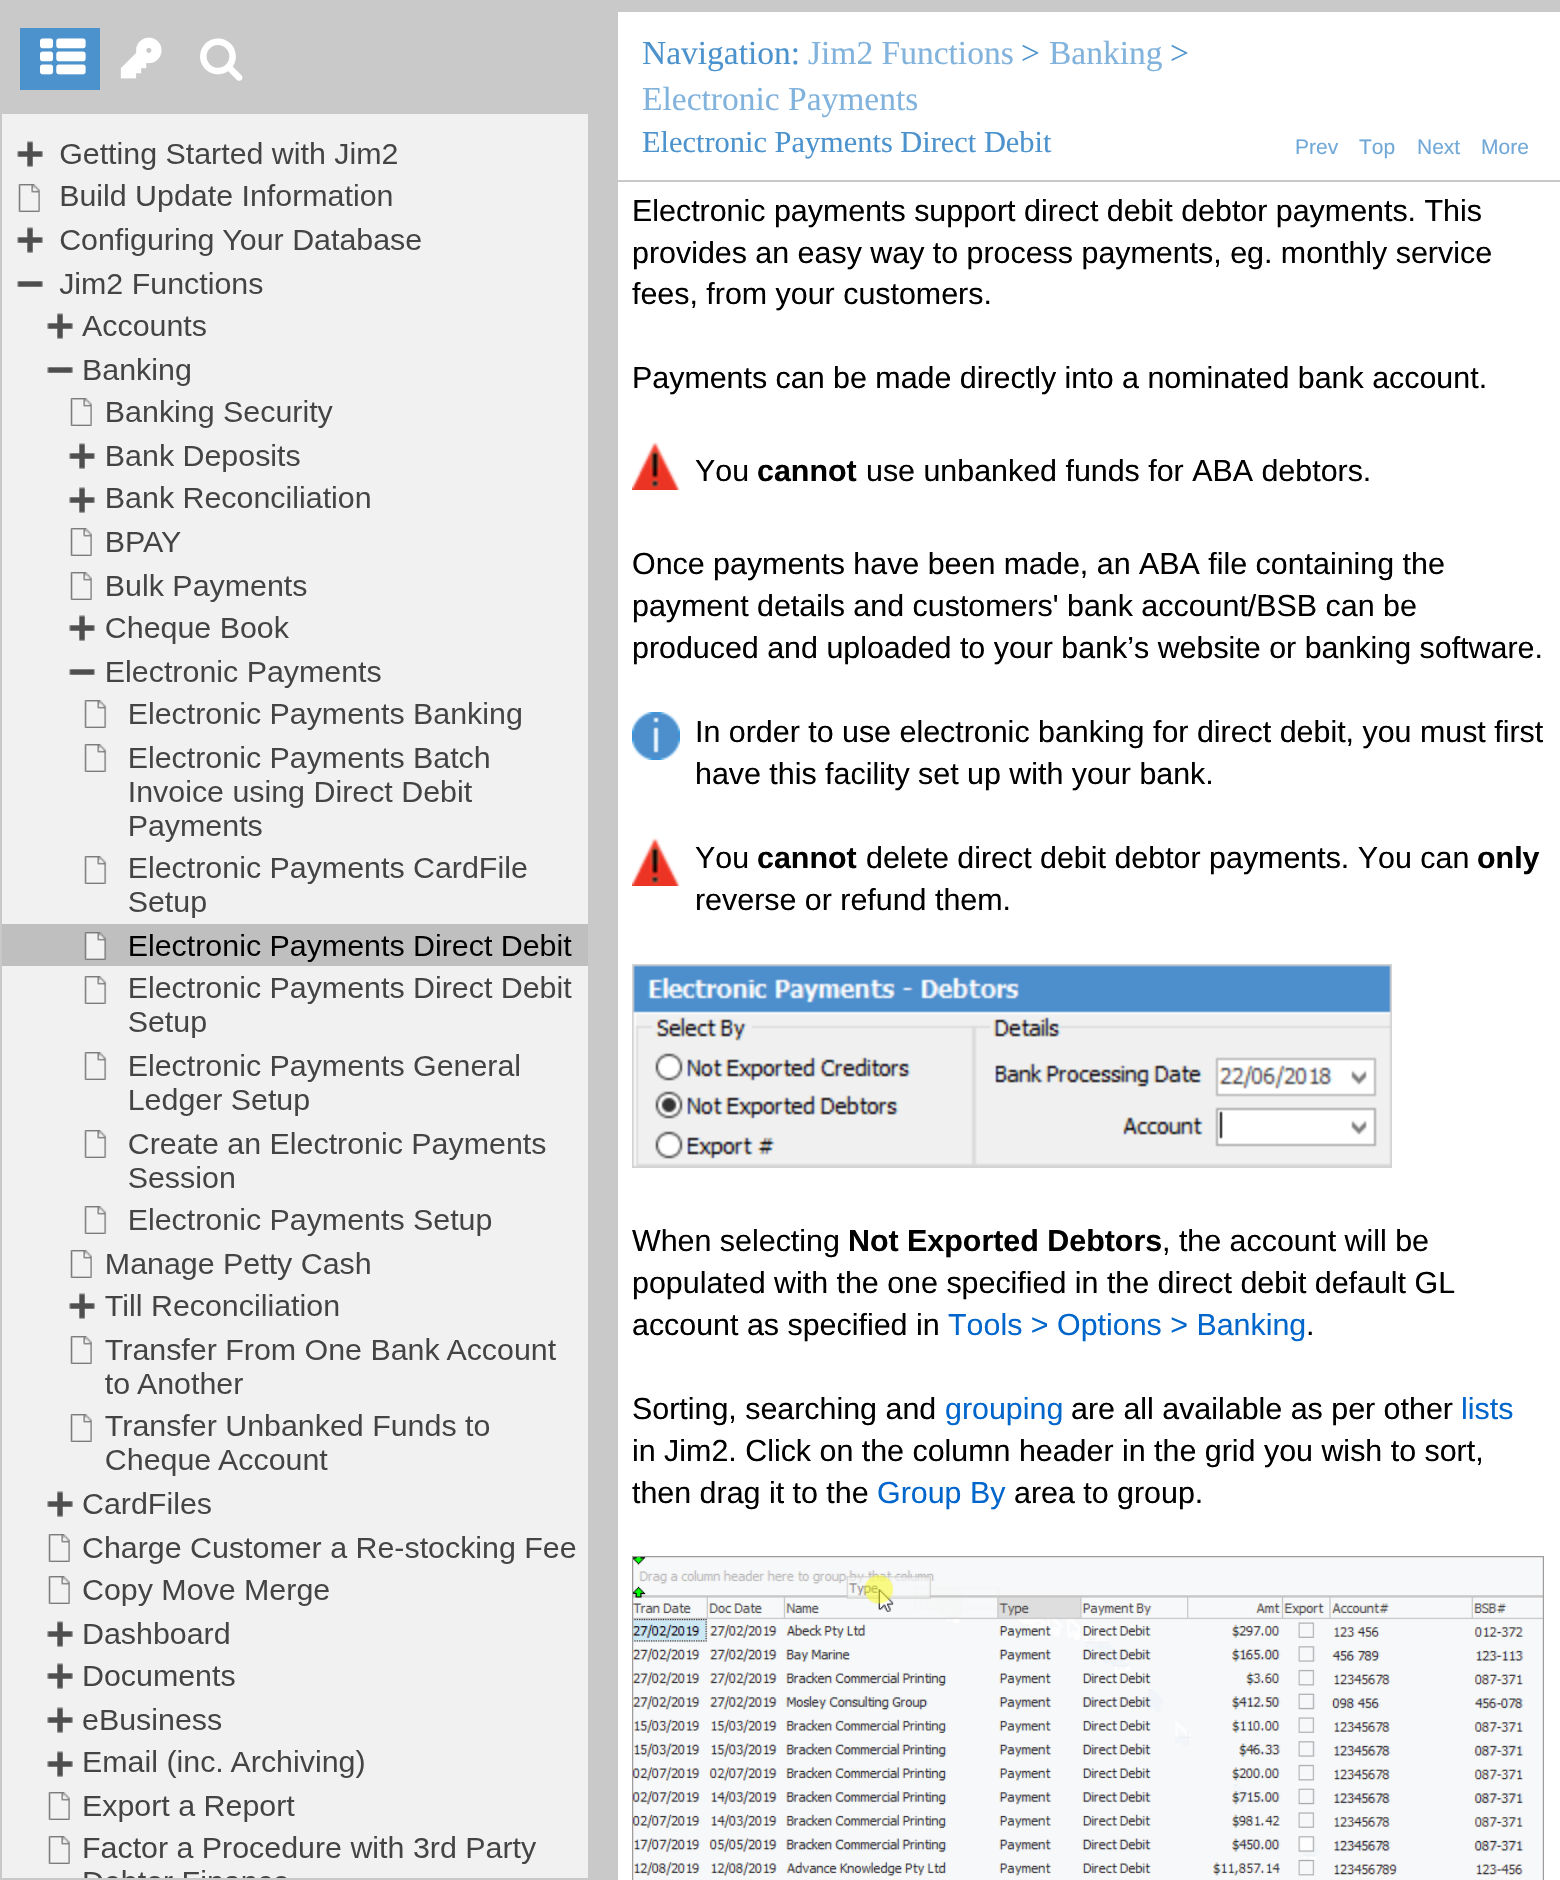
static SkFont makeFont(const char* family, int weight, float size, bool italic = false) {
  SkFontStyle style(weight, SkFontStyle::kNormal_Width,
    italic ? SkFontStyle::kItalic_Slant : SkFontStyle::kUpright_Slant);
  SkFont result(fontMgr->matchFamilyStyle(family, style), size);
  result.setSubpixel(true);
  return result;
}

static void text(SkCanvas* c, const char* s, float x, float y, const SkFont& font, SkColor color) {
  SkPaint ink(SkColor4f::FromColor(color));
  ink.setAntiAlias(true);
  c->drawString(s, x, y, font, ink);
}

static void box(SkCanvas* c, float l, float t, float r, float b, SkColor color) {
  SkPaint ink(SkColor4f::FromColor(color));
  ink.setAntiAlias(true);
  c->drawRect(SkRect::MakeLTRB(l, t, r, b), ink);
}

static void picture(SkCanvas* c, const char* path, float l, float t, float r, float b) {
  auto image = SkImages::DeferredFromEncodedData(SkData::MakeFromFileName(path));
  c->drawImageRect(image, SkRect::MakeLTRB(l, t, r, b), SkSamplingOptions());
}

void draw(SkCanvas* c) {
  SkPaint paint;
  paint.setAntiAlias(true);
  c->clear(0xffc9c9c9);
  box(c, 20, 28, 100, 90, 0xff4c92cd);
  picture(c, "img_01.png", 40, 38, 86, 75);
  picture(c, "img_02.png", 120, 37, 162, 79);
  picture(c, "img_03.png", 200, 38, 243, 81);
  picture(c, "img_04.png", 0, 112, 590, 1880);
  box(c, 618, 12, 1560, 1880, 0xffffffff);
  SkFont face1 = makeFont("Liberation Serif", 400, 33.5f);
  text(c, "Navigation:", 642, 64, face1, 0xff4c92cd);
  text(c, "Jim2 Functions", 808, 64, face1, 0xff82b3dc);
  text(c, ">", 1021, 64, face1, 0xff4c92cd);
  text(c, "Banking", 1049, 64, face1, 0xff82b3dc);
  text(c, ">", 1170, 64, face1, 0xff4c92cd);
  text(c, "Electronic Payments", 642, 110, face1, 0xff82b3dc);
  SkFont face2 = makeFont("Liberation Serif", 400, 30.4f);
  text(c, "Electronic Payments Direct Debit", 642, 152, face2, 0xff4c92cd);
  SkFont face3 = makeFont("Liberation Sans", 400, 21);
  text(c, "Prev", 1295, 154, face3, 0xff70a8d7);
  text(c, "Top", 1359, 154, face3, 0xff70a8d7);
  text(c, "Next", 1417, 154, face3, 0xff70a8d7);
  text(c, "More", 1481, 154, face3, 0xff70a8d7);
  box(c, 618, 180, 1560, 182, 0xffc9c9c9);
  SkFont face4 = makeFont("Liberation Sans", 400, 30.4f);
  text(c, "Electronic payments support direct debit debtor payments. This", 632, 221, face4, 0xff000000);
  text(c, "provides an easy way to process payments, eg. monthly service", 632, 263, face4, 0xff000000);
  text(c, "fees, from your customers.", 632, 304, face4, 0xff000000);
  text(c, "Payments can be made directly into a nominated bank account.", 632, 388, face4, 0xff000000);
  picture(c, "img_05.png", 632, 442, 680, 490);
  text(c, "You", 695, 481, face4, 0xff000000);
  SkFont face5 = makeFont("Liberation Sans", 700, 30.4f);
  text(c, "cannot", 757, 481, face5, 0xff000000);
  text(c, "use unbanked funds for ABA debtors.", 866, 481, face4, 0xff000000);
  text(c, "Once payments have been made, an ABA file containing the", 632, 574, face4, 0xff000000);
  text(c, "payment details and customers' bank account/BSB can be", 632, 616, face4, 0xff000000);
  text(c, "produced and uploaded to your bank’s website or banking software.", 632, 658, face4, 0xff000000);
  picture(c, "img_06.png", 632, 712, 680, 760);
  text(c, "In order to use electronic banking for direct debit, you must first", 695, 742, face4, 0xff000000);
  text(c, "have this facility set up with your bank.", 695, 784, face4, 0xff000000);
  picture(c, "img_05.png", 632, 838, 680, 886);
  text(c, "You", 695, 868, face4, 0xff000000);
  text(c, "cannot", 757, 868, face5, 0xff000000);
  text(c, "delete direct debit debtor payments. You can", 866, 868, face4, 0xff000000);
  text(c, "only", 1477, 868, face5, 0xff000000);
  text(c, "reverse or refund them.", 695, 910, face4, 0xff000000);
  picture(c, "img_07.png", 632, 964, 1392, 1168);
  text(c, "When selecting", 632, 1251, face4, 0xff000000);
  text(c, "Not Exported Debtors", 848, 1251, face5, 0xff000000);
  text(c, ", the account will be", 1162, 1251, face4, 0xff000000);
  text(c, "populated with the one specified in the direct debit default GL", 632, 1293, face4, 0xff000000);
  text(c, "account as specified in", 632, 1335, face4, 0xff000000);
  text(c, "Tools > Options > Banking", 948, 1335, face4, 0xff0066cc);
  text(c, ".", 1306, 1335, face4, 0xff000000);
  text(c, "Sorting, searching and", 632, 1419, face4, 0xff000000);
  text(c, "grouping", 945, 1419, face4, 0xff0066cc);
  text(c, "are all available as per other", 1071, 1419, face4, 0xff000000);
  text(c, "lists", 1461, 1419, face4, 0xff0066cc);
  text(c, "in Jim2. Click on the column header in the grid you wish to sort,", 632, 1461, face4, 0xff000000);
  text(c, "then drag it to the", 632, 1503, face4, 0xff000000);
  text(c, "Group By", 877, 1503, face4, 0xff0066cc);
  text(c, "area to group.", 1014, 1503, face4, 0xff000000);
  picture(c, "img_08.png", 632, 1556, 1544, 1880);
}
